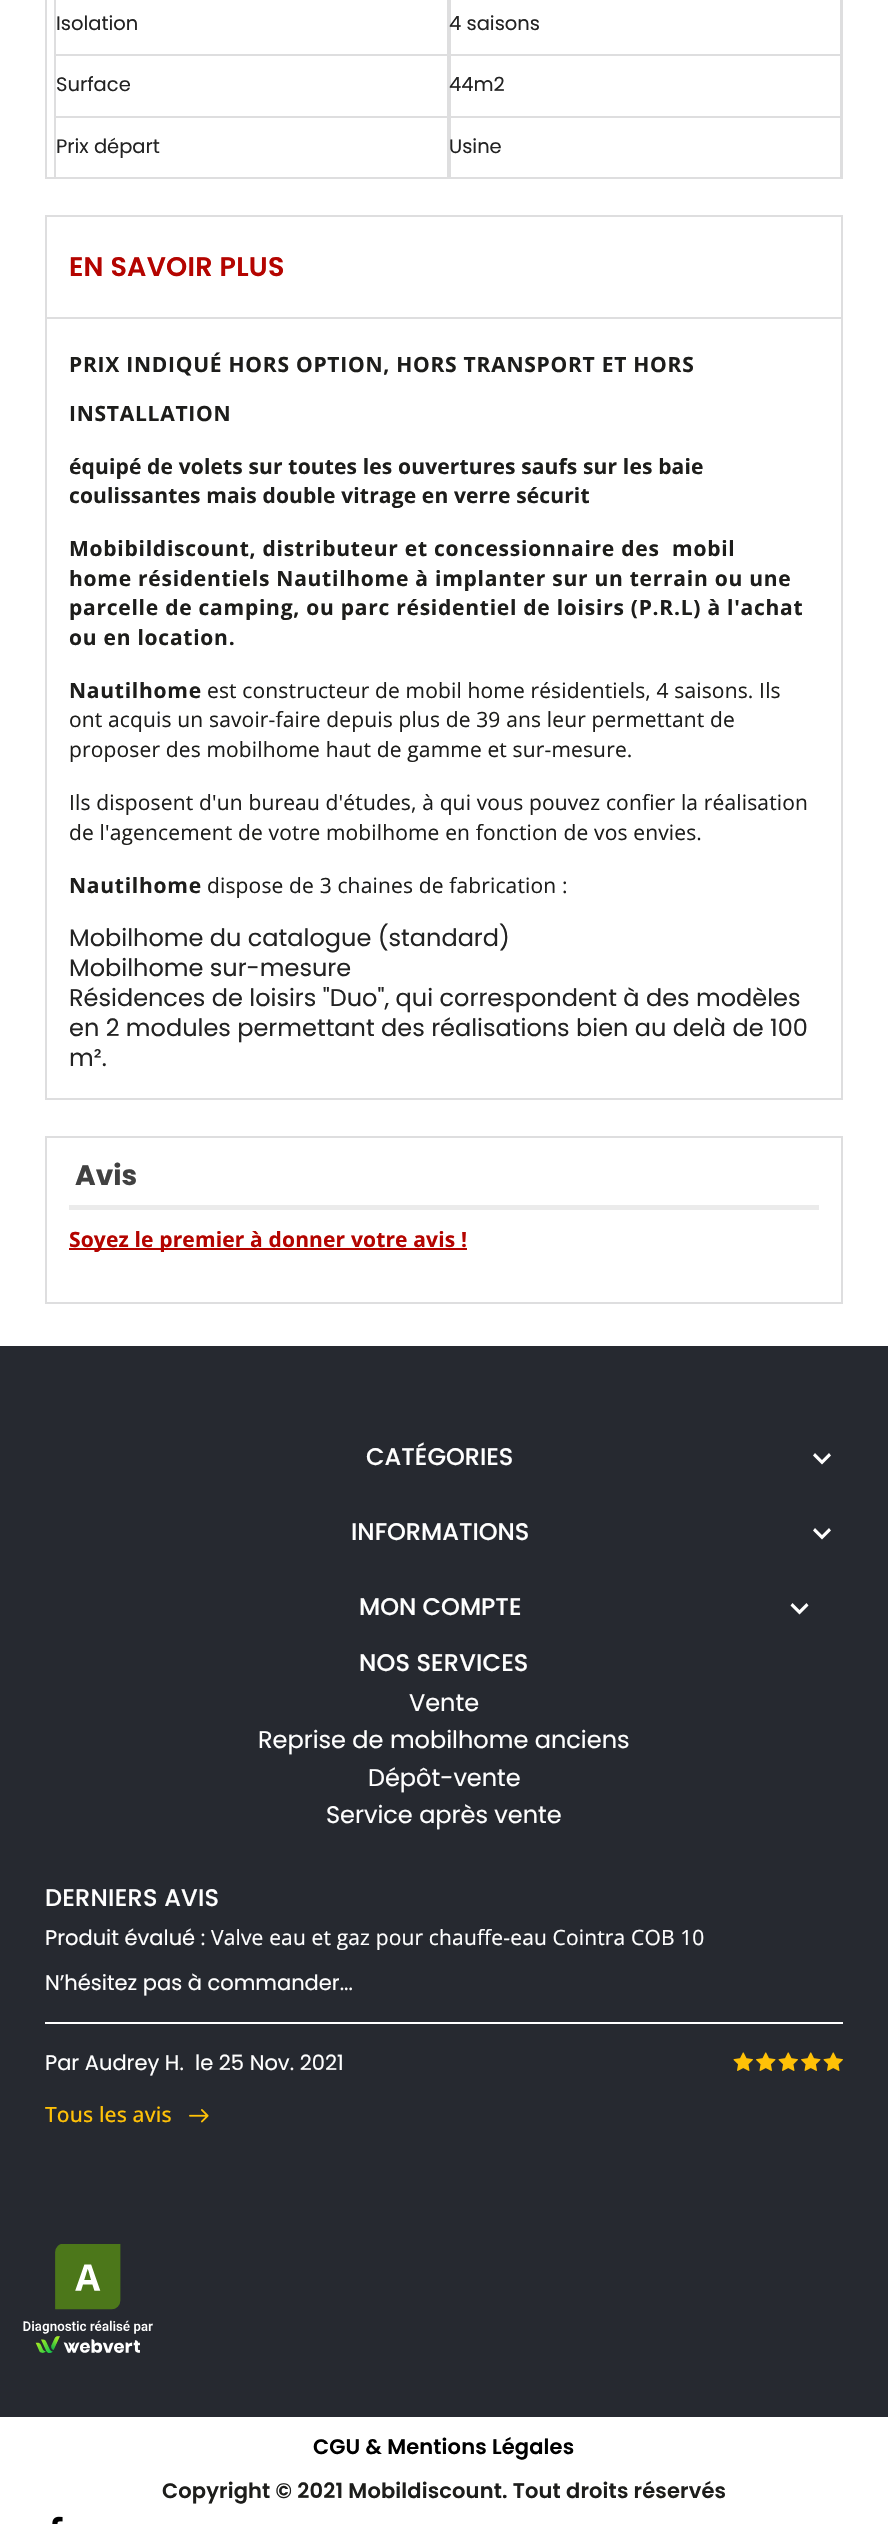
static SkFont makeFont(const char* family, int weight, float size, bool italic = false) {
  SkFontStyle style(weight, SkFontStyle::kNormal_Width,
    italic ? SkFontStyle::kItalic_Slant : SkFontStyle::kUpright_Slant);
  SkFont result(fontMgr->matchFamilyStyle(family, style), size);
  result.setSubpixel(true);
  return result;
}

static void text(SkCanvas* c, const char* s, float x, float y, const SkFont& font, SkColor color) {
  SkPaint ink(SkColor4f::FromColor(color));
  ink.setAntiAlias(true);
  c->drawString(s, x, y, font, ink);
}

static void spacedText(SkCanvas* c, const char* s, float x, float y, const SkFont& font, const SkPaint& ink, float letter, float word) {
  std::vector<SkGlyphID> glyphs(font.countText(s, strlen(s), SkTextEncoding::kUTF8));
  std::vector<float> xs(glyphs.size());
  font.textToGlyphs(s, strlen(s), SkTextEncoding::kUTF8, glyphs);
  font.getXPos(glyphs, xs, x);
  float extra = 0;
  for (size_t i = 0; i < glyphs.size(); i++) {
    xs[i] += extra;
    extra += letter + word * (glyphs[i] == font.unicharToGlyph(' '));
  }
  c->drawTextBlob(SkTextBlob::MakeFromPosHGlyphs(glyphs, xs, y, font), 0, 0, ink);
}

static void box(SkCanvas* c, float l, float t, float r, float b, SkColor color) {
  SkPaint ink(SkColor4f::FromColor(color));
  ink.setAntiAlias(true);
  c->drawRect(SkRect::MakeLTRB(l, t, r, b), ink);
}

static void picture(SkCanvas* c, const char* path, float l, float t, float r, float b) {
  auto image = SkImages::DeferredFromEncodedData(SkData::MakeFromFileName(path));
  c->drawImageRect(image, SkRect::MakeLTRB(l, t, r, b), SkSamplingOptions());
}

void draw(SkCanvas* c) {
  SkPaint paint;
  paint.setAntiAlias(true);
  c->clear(0xffffffff);
  paint.setStyle(SkPaint::kStroke_Style);
  paint.setStrokeWidth(2);
  paint.setColor(0xffdededf);
  c->drawRect(SkRect::MakeLTRB(46, -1, 842, 178), paint);
  box(c, 447, 0, 451, 54, 0xffdededf);
  box(c, 54, 0, 56, 54, 0xffdededf);
  SkFont face1 = makeFont("Poppins", 400, 19.5f);
  text(c, "Isolation", 56, 30, face1, 0xff232323);
  box(c, 840, 0, 841, 54, 0xffdededf);
  text(c, "4 saisons", 449, 30, face1, 0xff232323);
  box(c, 54, 54, 842, 56, 0xffdededf);
  box(c, 447, 54, 451, 116, 0xffdededf);
  box(c, 54, 54, 56, 116, 0xffdededf);
  text(c, "Surface", 56, 91, face1, 0xff232323);
  box(c, 840, 54, 841, 116, 0xffdededf);
  text(c, "44m2", 449, 91, face1, 0xff232323);
  box(c, 54, 116, 842, 118, 0xffdededf);
  box(c, 447, 116, 451, 177, 0xffdededf);
  box(c, 54, 116, 56, 177, 0xffdededf);
  text(c, "Prix départ", 56, 153, face1, 0xff232323);
  box(c, 840, 116, 841, 177, 0xffdededf);
  text(c, "Usine", 449, 153, face1, 0xff232323);
  c->drawRect(SkRect::MakeLTRB(46, 216, 842, 1099), paint);
  box(c, 47, 317, 842, 319, 0xffdededf);
  SkFont face2 = makeFont("Poppins", 600, 27);
  paint.setStyle(SkPaint::kFill_Style);
  paint.setColor(0xffb40400);
  spacedText(c, "EN SAVOIR PLUS", 69, 276, face2, paint, 0.25f, 0);
  SkFont face3 = makeFont("Open Sans", 700, 21);
  paint.setColor(0xff1d1d1b);
  spacedText(c, "PRIX INDIQUÉ HORS OPTION, HORS TRANSPORT ET HORS", 69, 372, face3, paint, 0.75f, 0);
  spacedText(c, "INSTALLATION", 69, 421, face3, paint, 0.75f, 0);
  spacedText(c, "équipé de volets sur toutes les ouvertures saufs sur les baie", 69, 474, face3, paint, 0.15f, 0);
  spacedText(c, "coulissantes mais double vitrage en verre sécurit", 69, 503, face3, paint, 0.15f, 0);
  spacedText(c, "Mobibildiscount, distributeur et concessionnaire des  mobil", 69, 556, face3, paint, 0.75f, 0);
  spacedText(c, "home résidentiels Nautilhome à implanter sur un terrain ou une", 69, 586, face3, paint, 0.75f, 0);
  spacedText(c, "parcelle de camping, ou parc résidentiel de loisirs (P.R.L) à l'achat", 69, 615, face3, paint, 0.75f, 0);
  spacedText(c, "ou en location.", 69, 645, face3, paint, 0.75f, 0);
  spacedText(c, "Nautilhome", 69, 698, face3, paint, 0.75f, 0);
  SkFont face4 = makeFont("Open Sans", 400, 21);
  spacedText(c, "est constructeur de mobil home résidentiels, 4 saisons. Ils", 207, 698, face4, paint, 0.15f, 0);
  spacedText(c, "ont acquis un savoir-faire depuis plus de 39 ans leur permettant de", 69, 727, face4, paint, 0.15f, 0);
  spacedText(c, "proposer des mobilhome haut de gamme et sur-mesure.", 69, 757, face4, paint, 0.15f, 0);
  spacedText(c, "Ils disposent d'un bureau d'études, à qui vous pouvez confier la réalisation", 69, 810, face4, paint, 0.15f, 0);
  spacedText(c, "de l'agencement de votre mobilhome en fonction de vos envies.", 69, 840, face4, paint, 0.15f, 0);
  spacedText(c, "Nautilhome", 69, 893, face3, paint, 0.75f, 0);
  spacedText(c, "dispose de 3 chaines de fabrication :", 207, 893, face4, paint, 0.15f, 0);
  SkFont face5 = makeFont("Poppins", 400, 24);
  text(c, "Mobilhome du catalogue (standard)", 69, 946, face5, 0xff232323);
  text(c, "Mobilhome sur-mesure", 69, 976, face5, 0xff232323);
  text(c, "Résidences de loisirs \"Duo\", qui correspondent à des modèles", 69, 1006, face5, 0xff232323);
  text(c, "en 2 modules permettant des réalisations bien au delà de 100", 69, 1036, face5, 0xff232323);
  text(c, "m².", 69, 1066, face5, 0xff232323);
  paint.setStyle(SkPaint::kStroke_Style);
  paint.setColor(0xffdededf);
  c->drawRect(SkRect::MakeLTRB(46, 1137, 842, 1303), paint);
  box(c, 69, 1205, 819, 1210, 0xffebebeb);
  SkFont face6 = makeFont("Poppins", 700, 28);
  text(c, "Avis", 75, 1185, face6, 0xff414141);
  box(c, 69, 1248, 467, 1250, 0xffb40400);
  paint.setStyle(SkPaint::kFill_Style);
  paint.setColor(0xffb40400);
  spacedText(c, "Soyez le premier à donner votre avis !", 69, 1247, face3, paint, 0.15f, 0);
  box(c, 0, 1346, 888, 2417, 0xff262930);
  SkFont face7 = makeFont("Poppins", 500, 24);
  text(c, "CATÉGORIES", 366, 1465, face7, 0xffffffff);
  paint.setColor(0xffffffff);
  c->drawPath(SkPathBuilder().moveTo(815, 1453).lineTo(822, 1460).lineTo(829, 1453).lineTo(831, 1455.5f).lineTo(822, 1464.5f).lineTo(813, 1455.5f).close().detach(), paint);
  text(c, "INFORMATIONS", 351, 1540, face7, 0xffffffff);
  c->drawPath(SkPathBuilder().moveTo(815, 1528).lineTo(822, 1535).lineTo(829, 1528).lineTo(831, 1530.5f).lineTo(822, 1539.5f).lineTo(813, 1530.5f).close().detach(), paint);
  text(c, "MON COMPTE", 359, 1615, face7, 0xffffffff);
  c->drawPath(SkPathBuilder().moveTo(792.5f, 1603).lineTo(799.5f, 1610).lineTo(806.5f, 1603).lineTo(808.5f, 1605.5f).lineTo(799.5f, 1614.5f).lineTo(790.5f, 1605.5f).close().detach(), paint);
  spacedText(c, "NOS SERVICES", 359, 1671, face7, paint, 0.15f, 0);
  text(c, "Vente", 409, 1711, face5, 0xffffffff);
  text(c, "Reprise de mobilhome anciens", 258, 1748, face5, 0xffffffff);
  text(c, "Dépôt-vente", 368, 1786, face5, 0xffffffff);
  text(c, "Service après vente", 326, 1823, face5, 0xffffffff);
  spacedText(c, "DERNIERS AVIS", 45, 1906, face7, paint, 0.25f, 0);
  SkFont face8 = makeFont("Poppins", 400, 21);
  text(c, "Produit évalué :", 45, 1945, face8, 0xffffffff);
  spacedText(c, "Valve eau et gaz pour chauffe-eau Cointra COB 10", 211, 1945, face4, paint, 0.15f, 0);
  text(c, "N’hésitez pas à commander...", 45, 1990, face8, 0xffffffff);
  box(c, 45, 2022, 843, 2024, 0xffffffff);
  text(c, "Par Audrey H.", 45, 2070, face8, 0xffffffff);
  text(c, "le 25 Nov. 2021", 195, 2070, face8, 0xffffffff);
  picture(c, "img_01.png", 733, 2052, 753, 2071);
  picture(c, "img_02.png", 756, 2052, 776, 2071);
  picture(c, "img_01.png", 778, 2052, 798, 2071);
  picture(c, "img_02.png", 801, 2052, 821, 2071);
  picture(c, "img_01.png", 823, 2052, 843, 2071);
  SkFont face9 = makeFont("Open Sans", 500, 21);
  paint.setColor(0xffffc107);
  spacedText(c, "Tous les avis", 45, 2122, face9, paint, 0.15f, 0);
  picture(c, "img_03.png", 189, 2109, 209, 2123);
  picture(c, "img_04.png", 23, 2244, 153, 2353);
  SkFont face10 = makeFont("Poppins", 600, 21);
  paint.setColor(0xff000000);
  spacedText(c, "CGU & Mentions Légales", 313, 2454, face10, paint, 0.15f, 0);
  paint.setColor(0xff1d1d1b);
  spacedText(c, "Copyright © 2021 Mobildiscount. Tout droits réservés", 162, 2498, face10, paint, 0.15f, 0);
  picture(c, "img_05.png", 52, 2516, 63, 2524);
}
